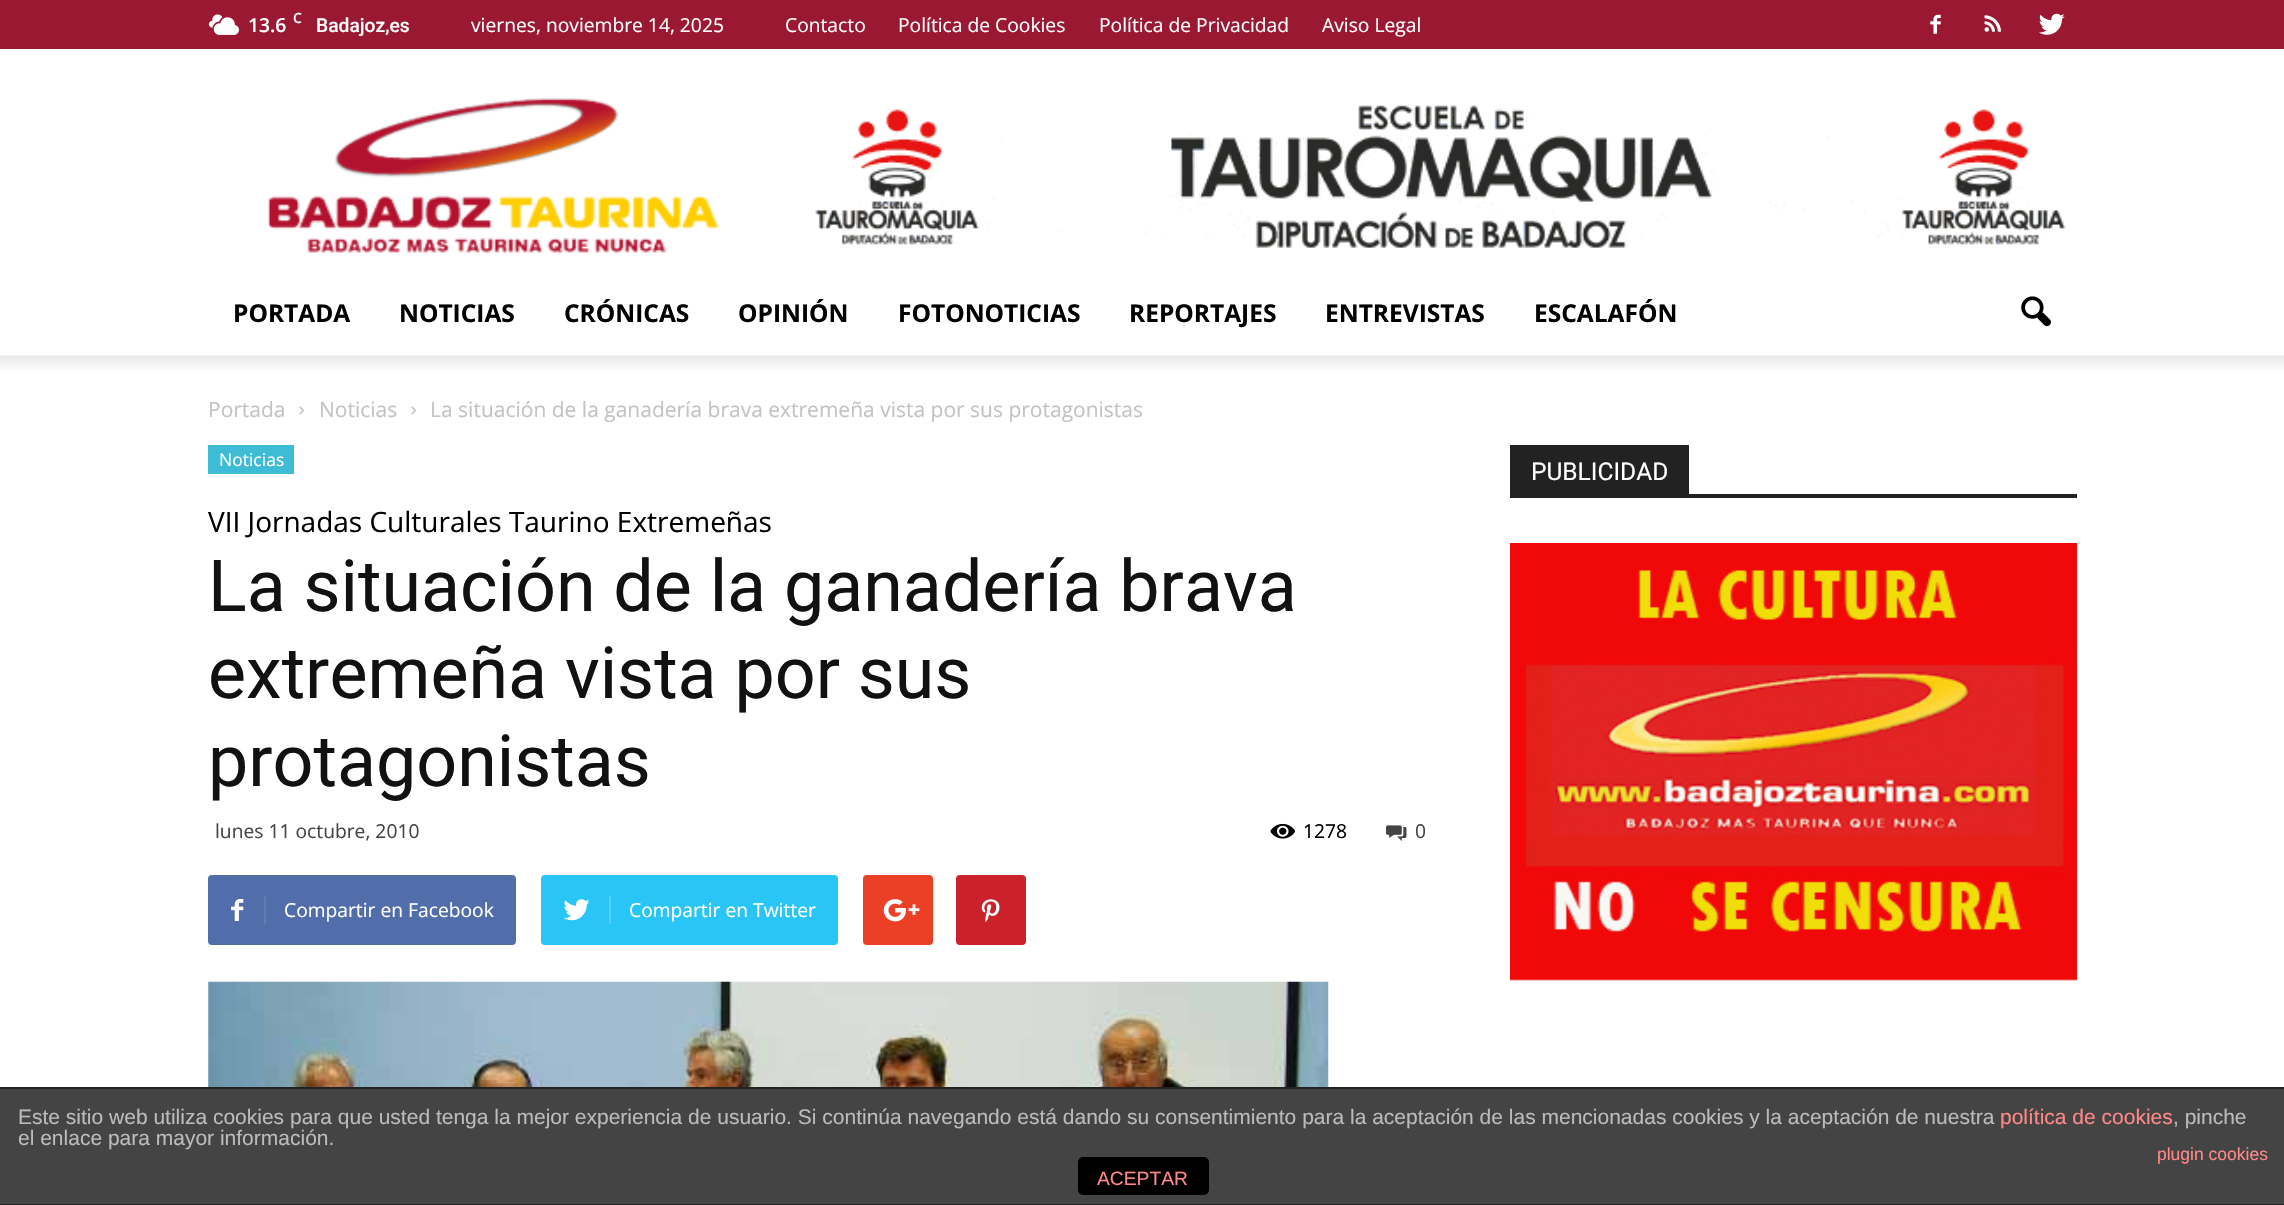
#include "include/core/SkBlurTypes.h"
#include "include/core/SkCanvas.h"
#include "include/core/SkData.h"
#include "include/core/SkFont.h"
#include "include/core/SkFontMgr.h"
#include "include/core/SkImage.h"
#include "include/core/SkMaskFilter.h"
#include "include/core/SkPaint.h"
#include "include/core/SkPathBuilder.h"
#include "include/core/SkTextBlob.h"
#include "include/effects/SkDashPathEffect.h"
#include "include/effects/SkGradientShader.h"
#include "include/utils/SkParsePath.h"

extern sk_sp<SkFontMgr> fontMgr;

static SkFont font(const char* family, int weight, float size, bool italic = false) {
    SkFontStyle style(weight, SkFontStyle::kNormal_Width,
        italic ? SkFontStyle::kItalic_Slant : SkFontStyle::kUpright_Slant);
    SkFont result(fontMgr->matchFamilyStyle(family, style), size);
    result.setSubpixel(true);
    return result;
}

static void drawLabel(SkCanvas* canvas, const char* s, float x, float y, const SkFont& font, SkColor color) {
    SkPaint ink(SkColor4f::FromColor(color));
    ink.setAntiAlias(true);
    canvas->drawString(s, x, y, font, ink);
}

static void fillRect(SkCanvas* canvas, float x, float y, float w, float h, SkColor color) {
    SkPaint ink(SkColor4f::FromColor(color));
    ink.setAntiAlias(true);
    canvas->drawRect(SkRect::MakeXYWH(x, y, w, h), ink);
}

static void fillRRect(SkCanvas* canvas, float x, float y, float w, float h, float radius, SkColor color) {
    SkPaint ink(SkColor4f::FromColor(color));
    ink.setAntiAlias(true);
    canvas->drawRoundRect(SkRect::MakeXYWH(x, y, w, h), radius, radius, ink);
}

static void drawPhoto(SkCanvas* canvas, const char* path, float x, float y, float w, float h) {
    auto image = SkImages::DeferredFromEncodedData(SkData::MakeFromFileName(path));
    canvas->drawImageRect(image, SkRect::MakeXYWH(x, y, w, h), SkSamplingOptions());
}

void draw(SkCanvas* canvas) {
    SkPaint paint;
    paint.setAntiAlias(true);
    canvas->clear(0xFFFFFFFF);
    fillRect(canvas, 0, 0, 2284, 49, 0xFF9A1832);
    drawPhoto(canvas, "assets/img1.png", 208, 14, 31, 21);
    SkFont font1 = font("Open Sans", 600, 19.25f);
    drawLabel(canvas, "13.6", 248, 32, font1, 0xFFFFFFFF);
    SkFont font2 = font("Open Sans", 600, 14);
    drawLabel(canvas, "C", 293, 23, font2, 0xFFFFFFFF);
    SkFont font3 = font("Roboto", 500, 19.25f);
    drawLabel(canvas, "Badajoz,es", 316, 32, font3, 0xFFFFFFFF);
    SkFont font4 = font("Open Sans", 400, 19.25f);
    drawLabel(canvas, "viernes, noviembre 14, 2025", 471, 32, font4, 0xFFFFFFFF);
    drawLabel(canvas, "Contacto", 785, 32, font4, 0xFFFFFFFF);
    drawLabel(canvas, "Política de Cookies", 898, 32, font4, 0xFFFFFFFF);
    drawLabel(canvas, "Política de Privacidad", 1099, 32, font4, 0xFFFFFFFF);
    drawLabel(canvas, "Aviso Legal", 1322, 32, font4, 0xFFFFFFFF);
    drawPhoto(canvas, "assets/img2.png", 1930, 14, 11, 20);
    drawPhoto(canvas, "assets/img3.png", 1984, 15, 17, 17);
    drawPhoto(canvas, "assets/img4.png", 2039, 13, 26, 22);
    drawPhoto(canvas, "assets/img5.png", 267, 98, 453, 156);
    drawPhoto(canvas, "assets/img6.png", 815, 105, 1251, 143);
    SkFont font5 = font("Open Sans", 700, 24.5f);
    drawLabel(canvas, "PORTADA", 233, 322, font5, 0xFF000000);
    drawLabel(canvas, "NOTICIAS", 399, 322, font5, 0xFF000000);
    drawLabel(canvas, "CRÓNICAS", 564, 322, font5, 0xFF000000);
    drawLabel(canvas, "OPINIÓN", 738, 322, font5, 0xFF000000);
    drawLabel(canvas, "FOTONOTICIAS", 898, 322, font5, 0xFF000000);
    drawLabel(canvas, "REPORTAJES", 1129, 322, font5, 0xFF000000);
    drawLabel(canvas, "ENTREVISTAS", 1325, 322, font5, 0xFF000000);
    drawLabel(canvas, "ESCALAFÓN", 1534, 322, font5, 0xFF000000);
    drawPhoto(canvas, "assets/img7.png", 2021, 296, 30, 31);
    drawPhoto(canvas, "assets/img8.png", 0, 355, 2284, 15);
    SkFont font6 = font("Open Sans", 400, 21);
    drawLabel(canvas, "Portada", 208, 417, font6, 0xFFC3C3C3);
    drawPhoto(canvas, "assets/img9.png", 299, 406, 5, 9);
    drawLabel(canvas, "Noticias", 319, 417, font6, 0xFFC3C3C3);
    drawPhoto(canvas, "assets/img9.png", 411, 406, 5, 9);
    drawLabel(canvas, "La situación de la ganadería brava extremeña vista por sus protagonistas", 430, 417, font6, 0xFFC3C3C3);
    fillRect(canvas, 208, 445, 86, 29, 0xFF3FBCD5);
    SkFont font7 = font("Open Sans", 400, 17.5f);
    drawLabel(canvas, "Noticias", 219, 466, font7, 0xFFFFFFFF);
    SkFont font8 = font("Open Sans", 400, 28);
    drawLabel(canvas, "VII Jornadas Culturales Taurino Extremeñas", 208, 532, font8, 0xFF000000);
    SkFont font9 = font("Roboto", 400, 71.75f);
    drawLabel(canvas, "La situación de la ganadería brava", 208, 611, font9, 0xFF111111);
    drawLabel(canvas, "extremeña vista por sus", 208, 698, font9, 0xFF111111);
    drawLabel(canvas, "protagonistas", 208, 786, font9, 0xFF111111);
    drawLabel(canvas, "lunes 11 octubre, 2010", 215, 838, font4, 0xFF444444);
    drawPhoto(canvas, "assets/img10.png", 1270, 823, 25, 16);
    drawLabel(canvas, "1278", 1303, 838, font4, 0xFF000000);
    drawPhoto(canvas, "assets/img11.png", 1386, 825, 21, 16);
    drawLabel(canvas, "0", 1415, 838, font4, 0xFF444444);
    fillRRect(canvas, 208, 875, 308, 70, 4, 0xFF516EAB);
    drawPhoto(canvas, "assets/img12.png", 231, 899, 13, 22);
    fillRect(canvas, 264, 896, 2, 28, 0xFF627DB3);
    drawLabel(canvas, "Compartir en Facebook", 284, 917, font4, 0xFFFFFFFF);
    fillRRect(canvas, 541, 875, 297, 70, 4, 0xFF29C5F6);
    drawPhoto(canvas, "assets/img13.png", 563, 899, 27, 22);
    fillRect(canvas, 609, 896, 2, 28, 0xFF54D1F8);
    drawLabel(canvas, "Compartir en Twitter", 629, 917, font4, 0xFFFFFFFF);
    fillRRect(canvas, 863, 875, 70, 70, 4, 0xFFEB4026);
    drawPhoto(canvas, "assets/img14.png", 883, 899, 37, 23);
    fillRRect(canvas, 956, 875, 70, 70, 4, 0xFFCA212A);
    drawPhoto(canvas, "assets/img15.png", 981, 899, 19, 23);
    drawPhoto(canvas, "assets/img16.png", 208, 981, 1121, 106);
    fillRect(canvas, 1510, 494, 567, 4, 0xFF222222);
    fillRect(canvas, 1510, 445, 179, 49, 0xFF222222);
    SkFont font10 = font("Roboto", 400, 24.5f);
    drawLabel(canvas, "PUBLICIDAD", 1531, 480, font10, 0xFFFFFFFF);
    drawPhoto(canvas, "assets/img17.png", 1510, 543, 567, 438);
    fillRect(canvas, 0, 1089, 2284, 115, 0xFF444444);
    fillRect(canvas, 0, 1087, 2284, 2, 0xFF222222);
    fillRect(canvas, 0, 1204, 2284, 1, 0xFF222222);
    SkFont font11 = font("Liberation Sans", 400, 21);
    drawLabel(canvas, "Este sitio web utiliza cookies para que usted tenga la mejor experiencia de usuario. Si continúa navegando está dando su consentimiento para la aceptación de las mencionadas cookies y la aceptación de nuestra", 18, 1124, font11, 0xFFBBBBBB);
    drawLabel(canvas, "política de cookies", 2000, 1124, font11, 0xFFFF8888);
    drawLabel(canvas, ", pinche", 2173, 1124, font11, 0xFFBBBBBB);
    drawLabel(canvas, "el enlace para mayor información.", 18, 1145, font11, 0xFFBBBBBB);
    SkFont font12 = font("Liberation Sans", 400, 17.5f);
    drawLabel(canvas, "plugin cookies", 2157, 1160, font12, 0xFFFF8888);
    fillRRect(canvas, 1078, 1157, 131, 38, 5, 0xFF000000);
    SkFont font13 = font("Liberation Sans", 400, 19.25f);
    drawLabel(canvas, "ACEPTAR", 1097, 1185, font13, 0xFFFF8888);
}
